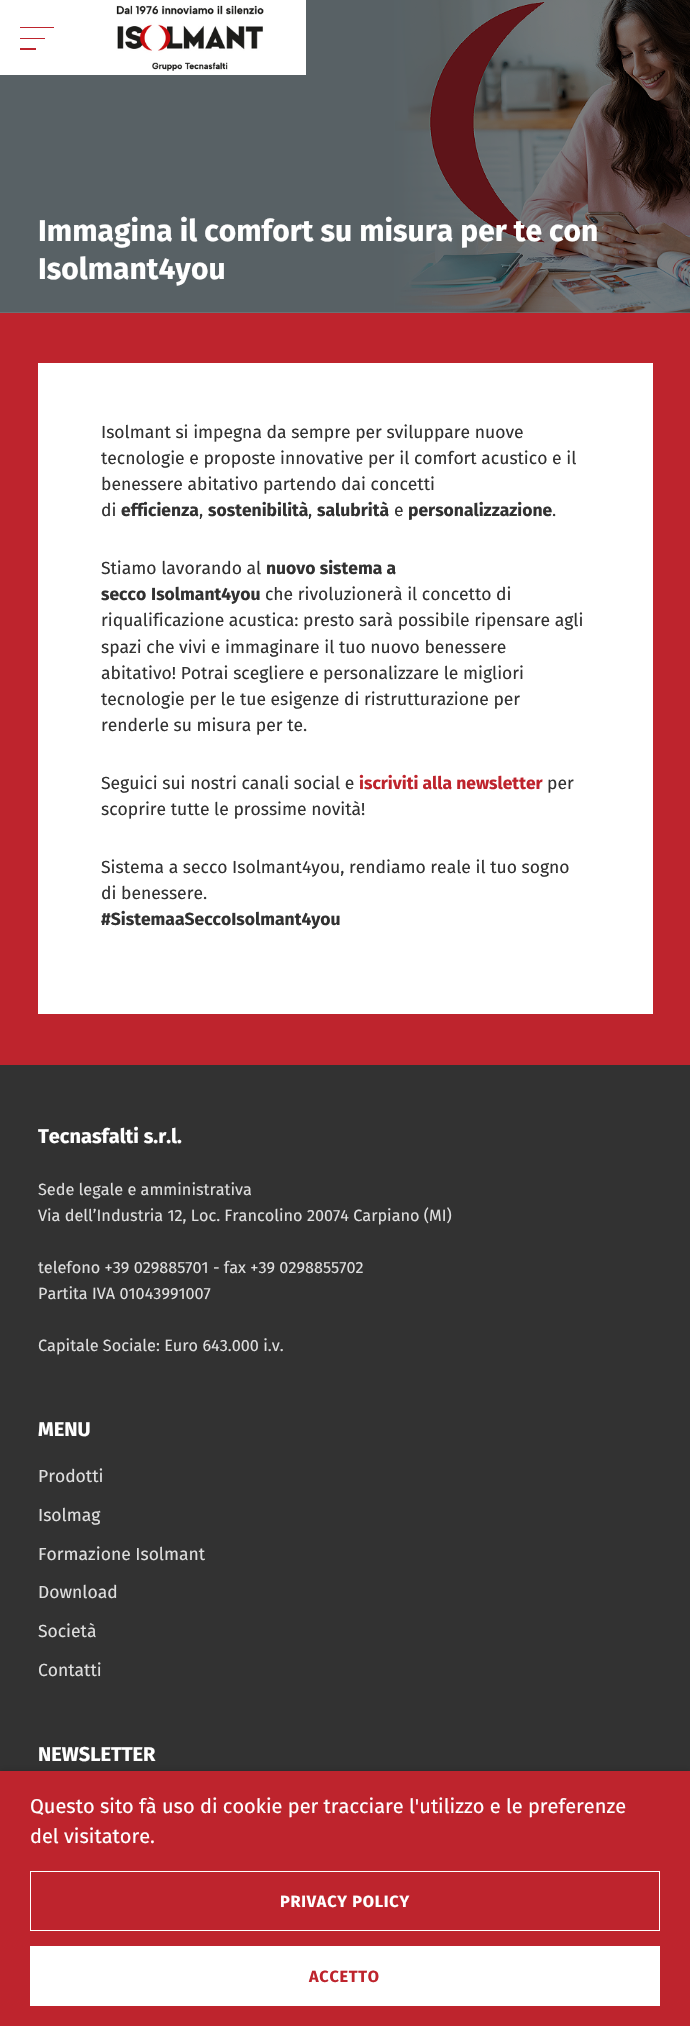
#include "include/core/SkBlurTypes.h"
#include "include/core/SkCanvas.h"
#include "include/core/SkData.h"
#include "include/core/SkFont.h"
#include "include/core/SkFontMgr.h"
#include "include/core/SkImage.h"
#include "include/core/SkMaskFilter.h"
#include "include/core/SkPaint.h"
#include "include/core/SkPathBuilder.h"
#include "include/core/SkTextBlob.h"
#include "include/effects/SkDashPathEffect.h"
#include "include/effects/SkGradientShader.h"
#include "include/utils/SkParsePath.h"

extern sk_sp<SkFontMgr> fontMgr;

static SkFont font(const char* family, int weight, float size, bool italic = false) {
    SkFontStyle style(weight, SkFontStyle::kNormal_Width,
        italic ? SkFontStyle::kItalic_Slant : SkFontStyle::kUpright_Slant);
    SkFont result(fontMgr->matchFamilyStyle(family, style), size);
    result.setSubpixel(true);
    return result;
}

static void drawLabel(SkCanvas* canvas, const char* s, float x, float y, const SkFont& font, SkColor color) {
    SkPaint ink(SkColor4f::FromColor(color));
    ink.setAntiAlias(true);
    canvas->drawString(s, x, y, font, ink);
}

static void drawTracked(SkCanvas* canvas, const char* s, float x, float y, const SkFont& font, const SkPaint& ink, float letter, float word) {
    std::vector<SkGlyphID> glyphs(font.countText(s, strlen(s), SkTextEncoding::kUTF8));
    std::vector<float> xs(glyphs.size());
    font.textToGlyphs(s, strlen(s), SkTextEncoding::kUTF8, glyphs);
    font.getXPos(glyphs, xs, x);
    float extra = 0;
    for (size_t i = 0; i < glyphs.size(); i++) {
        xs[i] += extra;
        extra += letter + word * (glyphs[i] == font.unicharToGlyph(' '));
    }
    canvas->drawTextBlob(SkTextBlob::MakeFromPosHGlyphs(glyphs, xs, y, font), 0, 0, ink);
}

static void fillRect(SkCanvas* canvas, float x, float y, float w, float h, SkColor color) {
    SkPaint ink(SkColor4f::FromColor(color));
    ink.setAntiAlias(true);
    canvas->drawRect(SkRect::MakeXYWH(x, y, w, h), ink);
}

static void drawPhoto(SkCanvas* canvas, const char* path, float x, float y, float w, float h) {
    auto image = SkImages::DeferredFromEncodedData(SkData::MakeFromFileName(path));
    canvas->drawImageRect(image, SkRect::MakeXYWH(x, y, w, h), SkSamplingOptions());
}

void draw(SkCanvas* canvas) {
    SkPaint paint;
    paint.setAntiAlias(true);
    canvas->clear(0xFF808080);
    drawPhoto(canvas, "assets/img2.png", 0, 0, 690, 313);
    fillRect(canvas, 0, 0, 306, 75, 0xFFFFFFFF);
    fillRect(canvas, 20, 48, 16, 2, 0xFFBE242D);
    fillRect(canvas, 20, 38, 25, 1, 0xFFBE242D);
    fillRect(canvas, 20, 27, 34, 1, 0xFFBE242D);
    drawPhoto(canvas, "assets/img1.png", 116, 5, 148, 66);
    SkFont font1 = font("Fira Sans", 700, 30);
    drawLabel(canvas, "Immagina il comfort su misura per te con", 38, 241, font1, 0xFFFFFFFF);
    drawLabel(canvas, "Isolmant4you", 38, 279, font1, 0xFFFFFFFF);
    fillRect(canvas, 0, 313, 690, 752, 0xFFBE242D);
    fillRect(canvas, 38, 363, 615, 651, 0xFFFFFFFF);
    SkFont font2 = font("Fira Sans", 400, 17.5f);
    drawLabel(canvas, "Isolmant si impegna da sempre per sviluppare nuove", 101, 438, font2, 0xFF323232);
    drawLabel(canvas, "tecnologie e proposte innovative per il comfort acustico e il", 101, 464, font2, 0xFF323232);
    drawLabel(canvas, "benessere abitativo partendo dai concetti", 101, 490, font2, 0xFF323232);
    drawLabel(canvas, "di", 101, 516, font2, 0xFF323232);
    SkFont font3 = font("Fira Sans", 700, 17.5f);
    drawLabel(canvas, "efficienza", 121, 516, font3, 0xFF323232);
    drawLabel(canvas, ",", 199, 516, font2, 0xFF323232);
    drawLabel(canvas, "sostenibilità", 208, 516, font3, 0xFF323232);
    drawLabel(canvas, ",", 308, 516, font2, 0xFF323232);
    drawLabel(canvas, "salubrità", 317, 516, font3, 0xFF323232);
    drawLabel(canvas, "e", 394, 516, font2, 0xFF323232);
    drawLabel(canvas, "personalizzazione", 408, 516, font3, 0xFF323232);
    drawLabel(canvas, ".", 552, 516, font2, 0xFF323232);
    drawLabel(canvas, "Stiamo lavorando al", 101, 574, font2, 0xFF323232);
    drawLabel(canvas, "nuovo sistema a", 266, 574, font3, 0xFF323232);
    drawLabel(canvas, "secco", 101, 600, font3, 0xFF323232);
    drawLabel(canvas, "Isolmant4you", 151, 600, font3, 0xFF323232);
    drawLabel(canvas, "che rivoluzionerà il concetto di", 265, 600, font2, 0xFF323232);
    drawLabel(canvas, "riqualificazione acustica: presto sarà possibile ripensare agli", 101, 626, font2, 0xFF323232);
    drawLabel(canvas, "spazi che vivi e immaginare il tuo nuovo benessere", 101, 653, font2, 0xFF323232);
    drawLabel(canvas, "abitativo! Potrai scegliere e personalizzare le migliori", 101, 679, font2, 0xFF323232);
    drawLabel(canvas, "tecnologie per le tue esigenze di ristrutturazione per", 101, 705, font2, 0xFF323232);
    drawLabel(canvas, "renderle su misura per te.", 101, 731, font2, 0xFF323232);
    drawLabel(canvas, "Seguici sui nostri canali social e", 101, 789, font2, 0xFF323232);
    drawLabel(canvas, "iscriviti alla newsletter", 359, 789, font3, 0xFFBE242D);
    drawLabel(canvas, "per", 547, 789, font2, 0xFF323232);
    drawLabel(canvas, "scoprire tutte le prossime novità!", 101, 815, font2, 0xFF323232);
    drawLabel(canvas, "Sistema a secco Isolmant4you, rendiamo reale il tuo sogno", 101, 873, font2, 0xFF323232);
    drawLabel(canvas, "di benessere.", 101, 899, font2, 0xFF323232);
    drawLabel(canvas, "#SistemaaSeccoIsolmant4you", 101, 925, font3, 0xFF323232);
    fillRect(canvas, 0, 1065, 690, 706, 0xFF323232);
    SkFont font4 = font("Fira Sans", 700, 20);
    drawLabel(canvas, "Tecnasfalti s.r.l.", 38, 1143, font4, 0xFFFFFFFF);
    SkFont font5 = font("Fira Sans", 400, 16.25f);
    drawLabel(canvas, "Sede legale e amministrativa", 38, 1195, font5, 0xFFDEDEDE);
    drawLabel(canvas, "Via dell’Industria 12, Loc. Francolino 20074 Carpiano (MI)", 38, 1221, font5, 0xFFDEDEDE);
    drawLabel(canvas, "telefono +39 029885701 - fax +39 0298855702", 38, 1273, font5, 0xFFDEDEDE);
    drawLabel(canvas, "Partita IVA 01043991007", 38, 1299, font5, 0xFFDEDEDE);
    drawLabel(canvas, "Capitale Sociale: Euro 643.000 i.v.", 38, 1351, font5, 0xFFDEDEDE);
    drawLabel(canvas, "MENU", 38, 1436, font4, 0xFFFFFFFF);
    drawLabel(canvas, "Prodotti", 38, 1482, font2, 0xFFDEDEDE);
    drawLabel(canvas, "Isolmag", 38, 1521, font2, 0xFFDEDEDE);
    drawLabel(canvas, "Formazione Isolmant", 38, 1560, font2, 0xFFDEDEDE);
    drawLabel(canvas, "Download", 38, 1598, font2, 0xFFDEDEDE);
    drawLabel(canvas, "Società", 38, 1637, font2, 0xFFDEDEDE);
    drawLabel(canvas, "Contatti", 38, 1676, font2, 0xFFDEDEDE);
    drawLabel(canvas, "NEWSLETTER", 38, 1761, font4, 0xFFFFFFFF);
    paint.setColor(0x1A000000);
    paint.setMaskFilter(SkMaskFilter::MakeBlur(kNormal_SkBlurStyle, 2.5f));
    canvas->drawRect(SkRect::MakeXYWH(0, 1769, 690, 255), paint);
    paint.setMaskFilter(nullptr);
    fillRect(canvas, 0, 1771, 690, 255, 0xFFBE242D);
    SkFont font6 = font("Fira Sans", 400, 20);
    drawLabel(canvas, "Questo sito fà uso di cookie per tracciare l'utilizzo e le preferenze", 30, 1813, font6, 0xFFFFFFFF);
    drawLabel(canvas, "del visitatore.", 30, 1843, font6, 0xFFFFFFFF);
    paint.setStroke(true);
    paint.setStrokeWidth(1);
    paint.setColor(0xFFFFFFFF);
    canvas->drawRect(SkRect::MakeXYWH(30.5f, 1871.5f, 629, 59), paint);
    SkFont font7 = font("Fira Sans", 700, 16.25f);
    paint.setStroke(false);
    drawTracked(canvas, "PRIVACY POLICY", 280, 1907, font7, paint, 0.75f, 0);
    fillRect(canvas, 30, 1946, 630, 60, 0xFFFFFFFF);
    paint.setColor(0xFFBE242D);
    drawTracked(canvas, "ACCETTO", 309, 1982, font7, paint, 0.75f, 0);
}
